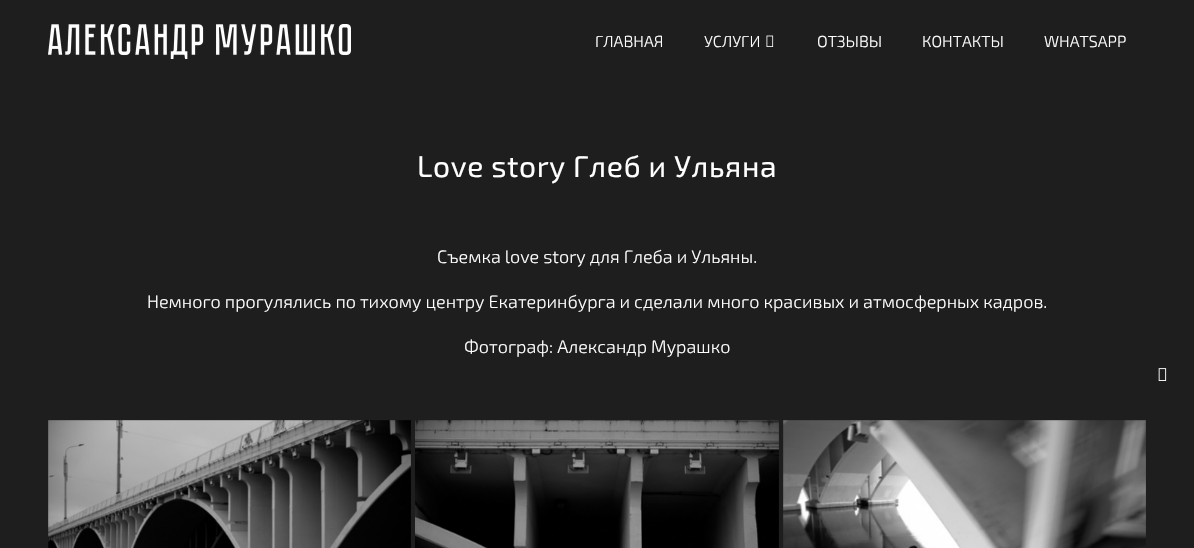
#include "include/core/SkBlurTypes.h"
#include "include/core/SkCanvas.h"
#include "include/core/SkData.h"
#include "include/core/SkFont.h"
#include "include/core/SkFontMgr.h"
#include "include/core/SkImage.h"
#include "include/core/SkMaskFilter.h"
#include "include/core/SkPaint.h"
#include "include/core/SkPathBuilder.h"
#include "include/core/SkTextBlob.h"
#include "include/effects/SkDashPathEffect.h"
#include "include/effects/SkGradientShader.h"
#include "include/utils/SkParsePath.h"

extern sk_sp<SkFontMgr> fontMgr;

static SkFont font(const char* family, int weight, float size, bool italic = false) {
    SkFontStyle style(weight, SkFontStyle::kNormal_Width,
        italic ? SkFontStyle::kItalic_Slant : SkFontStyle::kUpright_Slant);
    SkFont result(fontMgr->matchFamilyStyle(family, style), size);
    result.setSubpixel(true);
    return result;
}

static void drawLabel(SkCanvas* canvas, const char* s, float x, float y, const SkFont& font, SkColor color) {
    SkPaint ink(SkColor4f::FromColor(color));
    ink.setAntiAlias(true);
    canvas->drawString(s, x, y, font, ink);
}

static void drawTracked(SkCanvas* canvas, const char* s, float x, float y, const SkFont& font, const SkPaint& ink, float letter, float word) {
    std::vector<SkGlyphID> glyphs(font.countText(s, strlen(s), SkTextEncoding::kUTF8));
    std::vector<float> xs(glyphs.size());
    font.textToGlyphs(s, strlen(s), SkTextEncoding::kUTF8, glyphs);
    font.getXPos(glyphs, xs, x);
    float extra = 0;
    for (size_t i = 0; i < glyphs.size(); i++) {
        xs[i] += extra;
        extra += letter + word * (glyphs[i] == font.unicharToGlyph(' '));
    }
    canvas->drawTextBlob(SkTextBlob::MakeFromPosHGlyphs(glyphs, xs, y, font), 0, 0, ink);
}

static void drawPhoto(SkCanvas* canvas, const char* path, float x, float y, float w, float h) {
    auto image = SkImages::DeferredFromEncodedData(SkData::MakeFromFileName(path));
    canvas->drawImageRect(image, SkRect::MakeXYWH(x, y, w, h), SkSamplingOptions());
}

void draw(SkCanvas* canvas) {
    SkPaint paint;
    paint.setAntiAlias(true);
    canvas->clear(0xFF1E1E1E);
    drawPhoto(canvas, "assets/img1.png", 48, 24, 303, 35);
    SkFont font1 = font("Exo 2", 300, 16);
    drawLabel(canvas, "ГЛАВНАЯ", 595, 47, font1, 0xFFFFFFFF);
    drawLabel(canvas, "УСЛУГИ", 704, 47, font1, 0xFFFFFFFF);
    drawPhoto(canvas, "assets/img2.png", 766, 35, 8, 12);
    drawLabel(canvas, "ОТЗЫВЫ", 817, 47, font1, 0xFFFFFFFF);
    drawLabel(canvas, "КОНТАКТЫ", 922, 47, font1, 0xFFFFFFFF);
    drawLabel(canvas, "WHATSAPP", 1044, 47, font1, 0xFFFFFFFF);
    SkFont font2 = font("Exo 2", 400, 30);
    paint.setColor(0xFFFFFFFF);
    drawTracked(canvas, "Love story Глеб и Ульяна", 417, 177, font2, paint, 0.6f, 0);
    SkFont font3 = font("Exo 2", 300, 18);
    drawLabel(canvas, "Съемка love story для Глеба и Ульяны.", 437, 263, font3, 0xFFFFFFFF);
    drawLabel(canvas, "Немного прогулялись по тихому центру Екатеринбурга и сделали много красивых и атмосферных кадров.", 147, 308, font3, 0xFFFFFFFF);
    drawLabel(canvas, "Фотограф: Александр Мурашко", 464, 353, font3, 0xFFFFFFFF);
    drawPhoto(canvas, "assets/img3.png", 48, 420, 363, 128);
    drawPhoto(canvas, "assets/img4.png", 415, 420, 364, 128);
    drawPhoto(canvas, "assets/img5.png", 783, 420, 363, 128);
    drawPhoto(canvas, "assets/img6.png", 1158, 368, 9, 13);
}
